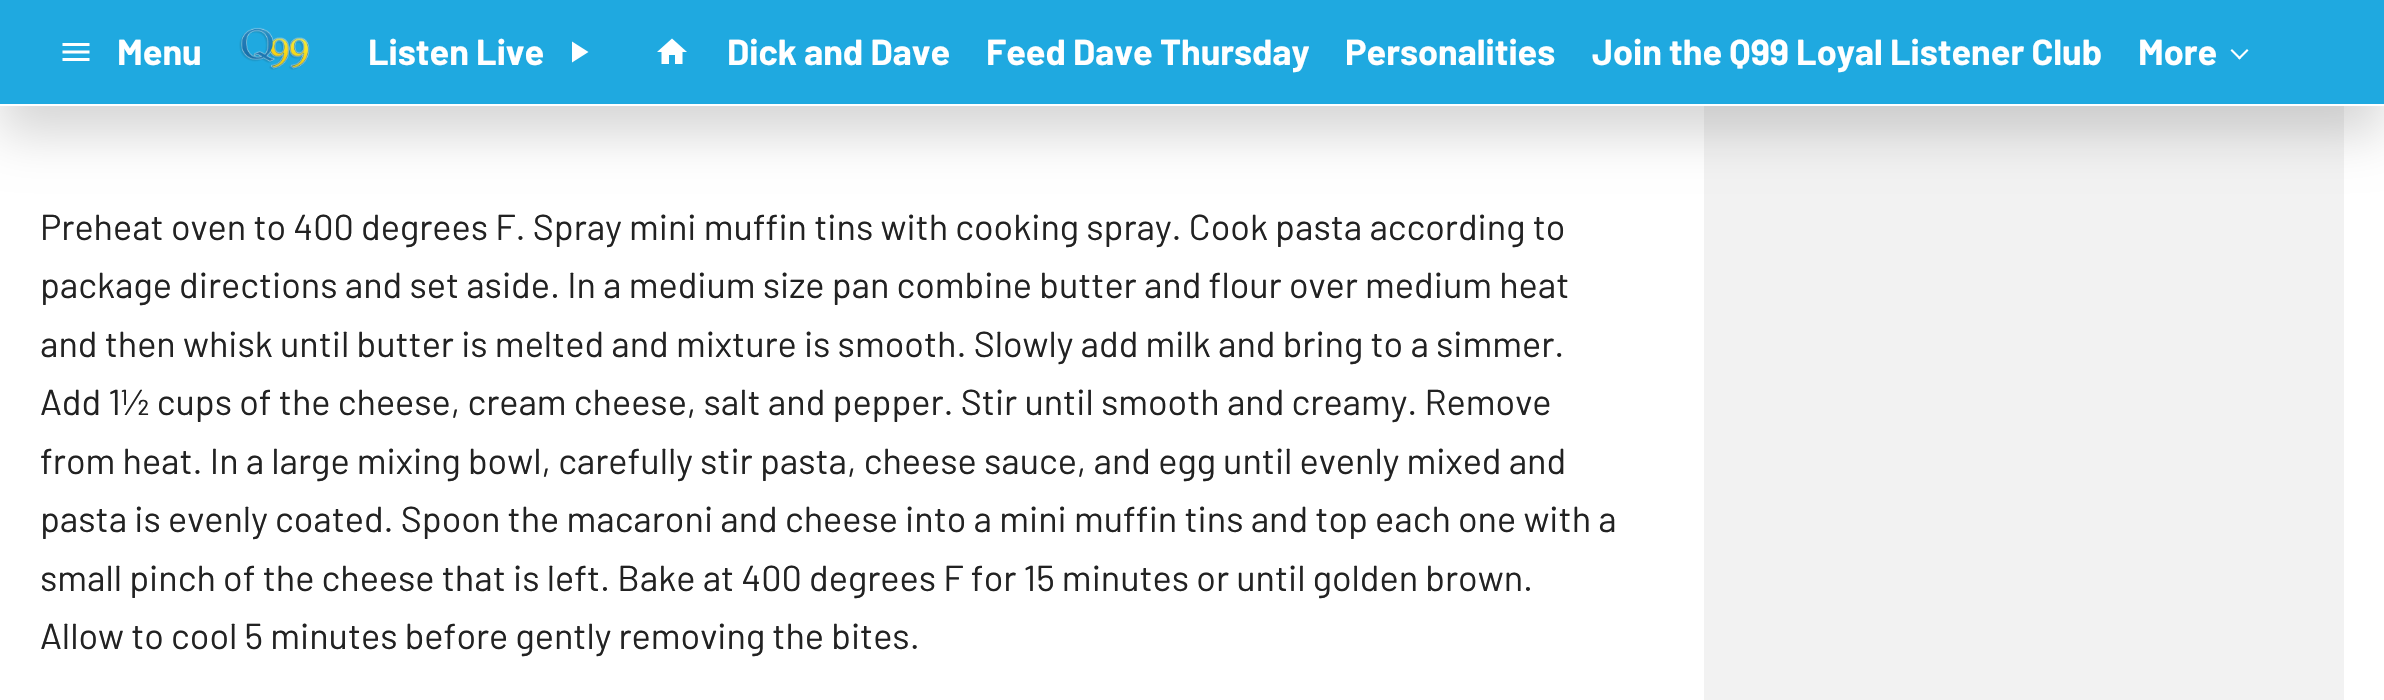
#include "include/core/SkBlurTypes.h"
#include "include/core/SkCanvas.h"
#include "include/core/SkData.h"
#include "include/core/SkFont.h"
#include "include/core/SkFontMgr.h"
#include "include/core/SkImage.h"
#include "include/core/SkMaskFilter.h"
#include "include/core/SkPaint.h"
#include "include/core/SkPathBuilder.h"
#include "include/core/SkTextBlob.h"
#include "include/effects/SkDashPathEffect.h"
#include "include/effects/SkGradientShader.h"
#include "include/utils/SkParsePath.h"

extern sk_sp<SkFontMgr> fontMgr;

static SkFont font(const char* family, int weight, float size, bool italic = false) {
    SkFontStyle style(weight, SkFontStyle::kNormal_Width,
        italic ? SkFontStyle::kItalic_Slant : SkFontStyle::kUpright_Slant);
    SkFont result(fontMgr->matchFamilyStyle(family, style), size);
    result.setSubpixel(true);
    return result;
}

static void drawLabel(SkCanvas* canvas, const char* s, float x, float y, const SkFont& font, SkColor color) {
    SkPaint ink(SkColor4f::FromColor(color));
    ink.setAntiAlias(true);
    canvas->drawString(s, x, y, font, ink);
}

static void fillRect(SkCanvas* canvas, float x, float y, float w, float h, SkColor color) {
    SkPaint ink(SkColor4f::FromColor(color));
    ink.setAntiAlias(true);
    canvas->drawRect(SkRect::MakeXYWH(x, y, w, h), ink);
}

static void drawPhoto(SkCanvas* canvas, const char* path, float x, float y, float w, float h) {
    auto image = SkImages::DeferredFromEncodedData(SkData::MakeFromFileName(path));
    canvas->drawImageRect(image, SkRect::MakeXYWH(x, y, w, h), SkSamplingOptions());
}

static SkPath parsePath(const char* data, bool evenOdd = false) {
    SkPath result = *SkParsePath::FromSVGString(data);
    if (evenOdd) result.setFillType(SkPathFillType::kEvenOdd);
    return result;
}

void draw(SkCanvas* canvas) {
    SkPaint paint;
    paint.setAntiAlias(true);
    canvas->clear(0xFFFFFFFF);
    fillRect(canvas, 1704, 106, 640, 594, 0xFFF2F2F2);
    paint.setColor(0x29000000);
    paint.setMaskFilter(SkMaskFilter::MakeBlur(kNormal_SkBlurStyle, 25));
    canvas->drawRect(SkRect::MakeXYWH(0, 26, 2384, 108), paint);
    paint.setMaskFilter(nullptr);
    fillRect(canvas, 0, 0, 2384, 104, 0xFF1FA9E0);
    fillRect(canvas, 0, 104, 2384, 2, 0xFFFFFFFF);
    drawPhoto(canvas, "assets/img1.png", 62, 43, 28, 18);
    SkFont font1 = font("Barlow", 700, 36);
    drawLabel(canvas, "Menu", 117, 65, font1, 0xFFFFFFFF);
    drawPhoto(canvas, "assets/img2.png", 239, 27, 71, 43);
    drawLabel(canvas, "Listen Live", 368, 65, font1, 0xFFFFFFFF);
    paint.setColor(0xFFFFFFFF);
    canvas->drawPath(parsePath("M572 41.5V62.5L588.5 52Z"), paint);
    drawPhoto(canvas, "assets/img3.png", 657, 38, 30, 26);
    drawLabel(canvas, "Dick and Dave", 727, 65, font1, 0xFFFFFFFF);
    drawLabel(canvas, "Feed Dave Thursday", 986, 65, font1, 0xFFFFFFFF);
    drawLabel(canvas, "Personalities", 1345, 65, font1, 0xFFFFFFFF);
    drawLabel(canvas, "Join the Q99 Loyal Listener Club", 1592, 65, font1, 0xFFFFFFFF);
    drawLabel(canvas, "More", 2138, 65, font1, 0xFFFFFFFF);
    canvas->drawPath(parsePath("M2248.5 50.5L2239.5 59.5L2238 58L2247 49Z"), paint);
    canvas->drawPath(parsePath("M2241 58L2239.5 59.5L2230.5 50.5L2232 49Z"), paint);
    SkFont font2 = font("Barlow", 400, 36);
    drawLabel(canvas, "Preheat oven to 400 degrees F. Spray mini muffin tins with cooking spray. Cook pasta according to", 40, 240, font2, 0xFF222222);
    drawLabel(canvas, "package directions and set aside. In a medium size pan combine butter and flour over medium heat", 40, 298, font2, 0xFF222222);
    drawLabel(canvas, "and then whisk until butter is melted and mixture is smooth. Slowly add milk and bring to a simmer.", 40, 357, font2, 0xFF222222);
    drawLabel(canvas, "Add 1½ cups of the cheese, cream cheese, salt and pepper. Stir until smooth and creamy. Remove", 40, 415, font2, 0xFF222222);
    drawLabel(canvas, "from heat. In a large mixing bowl, carefully stir pasta, cheese sauce, and egg until evenly mixed and", 40, 474, font2, 0xFF222222);
    drawLabel(canvas, "pasta is evenly coated. Spoon the macaroni and cheese into a mini muffin tins and top each one with a", 40, 532, font2, 0xFF222222);
    drawLabel(canvas, "small pinch of the cheese that is left. Bake at 400 degrees F for 15 minutes or until golden brown.", 40, 591, font2, 0xFF222222);
    drawLabel(canvas, "Allow to cool 5 minutes before gently removing the bites.", 40, 649, font2, 0xFF222222);
}
